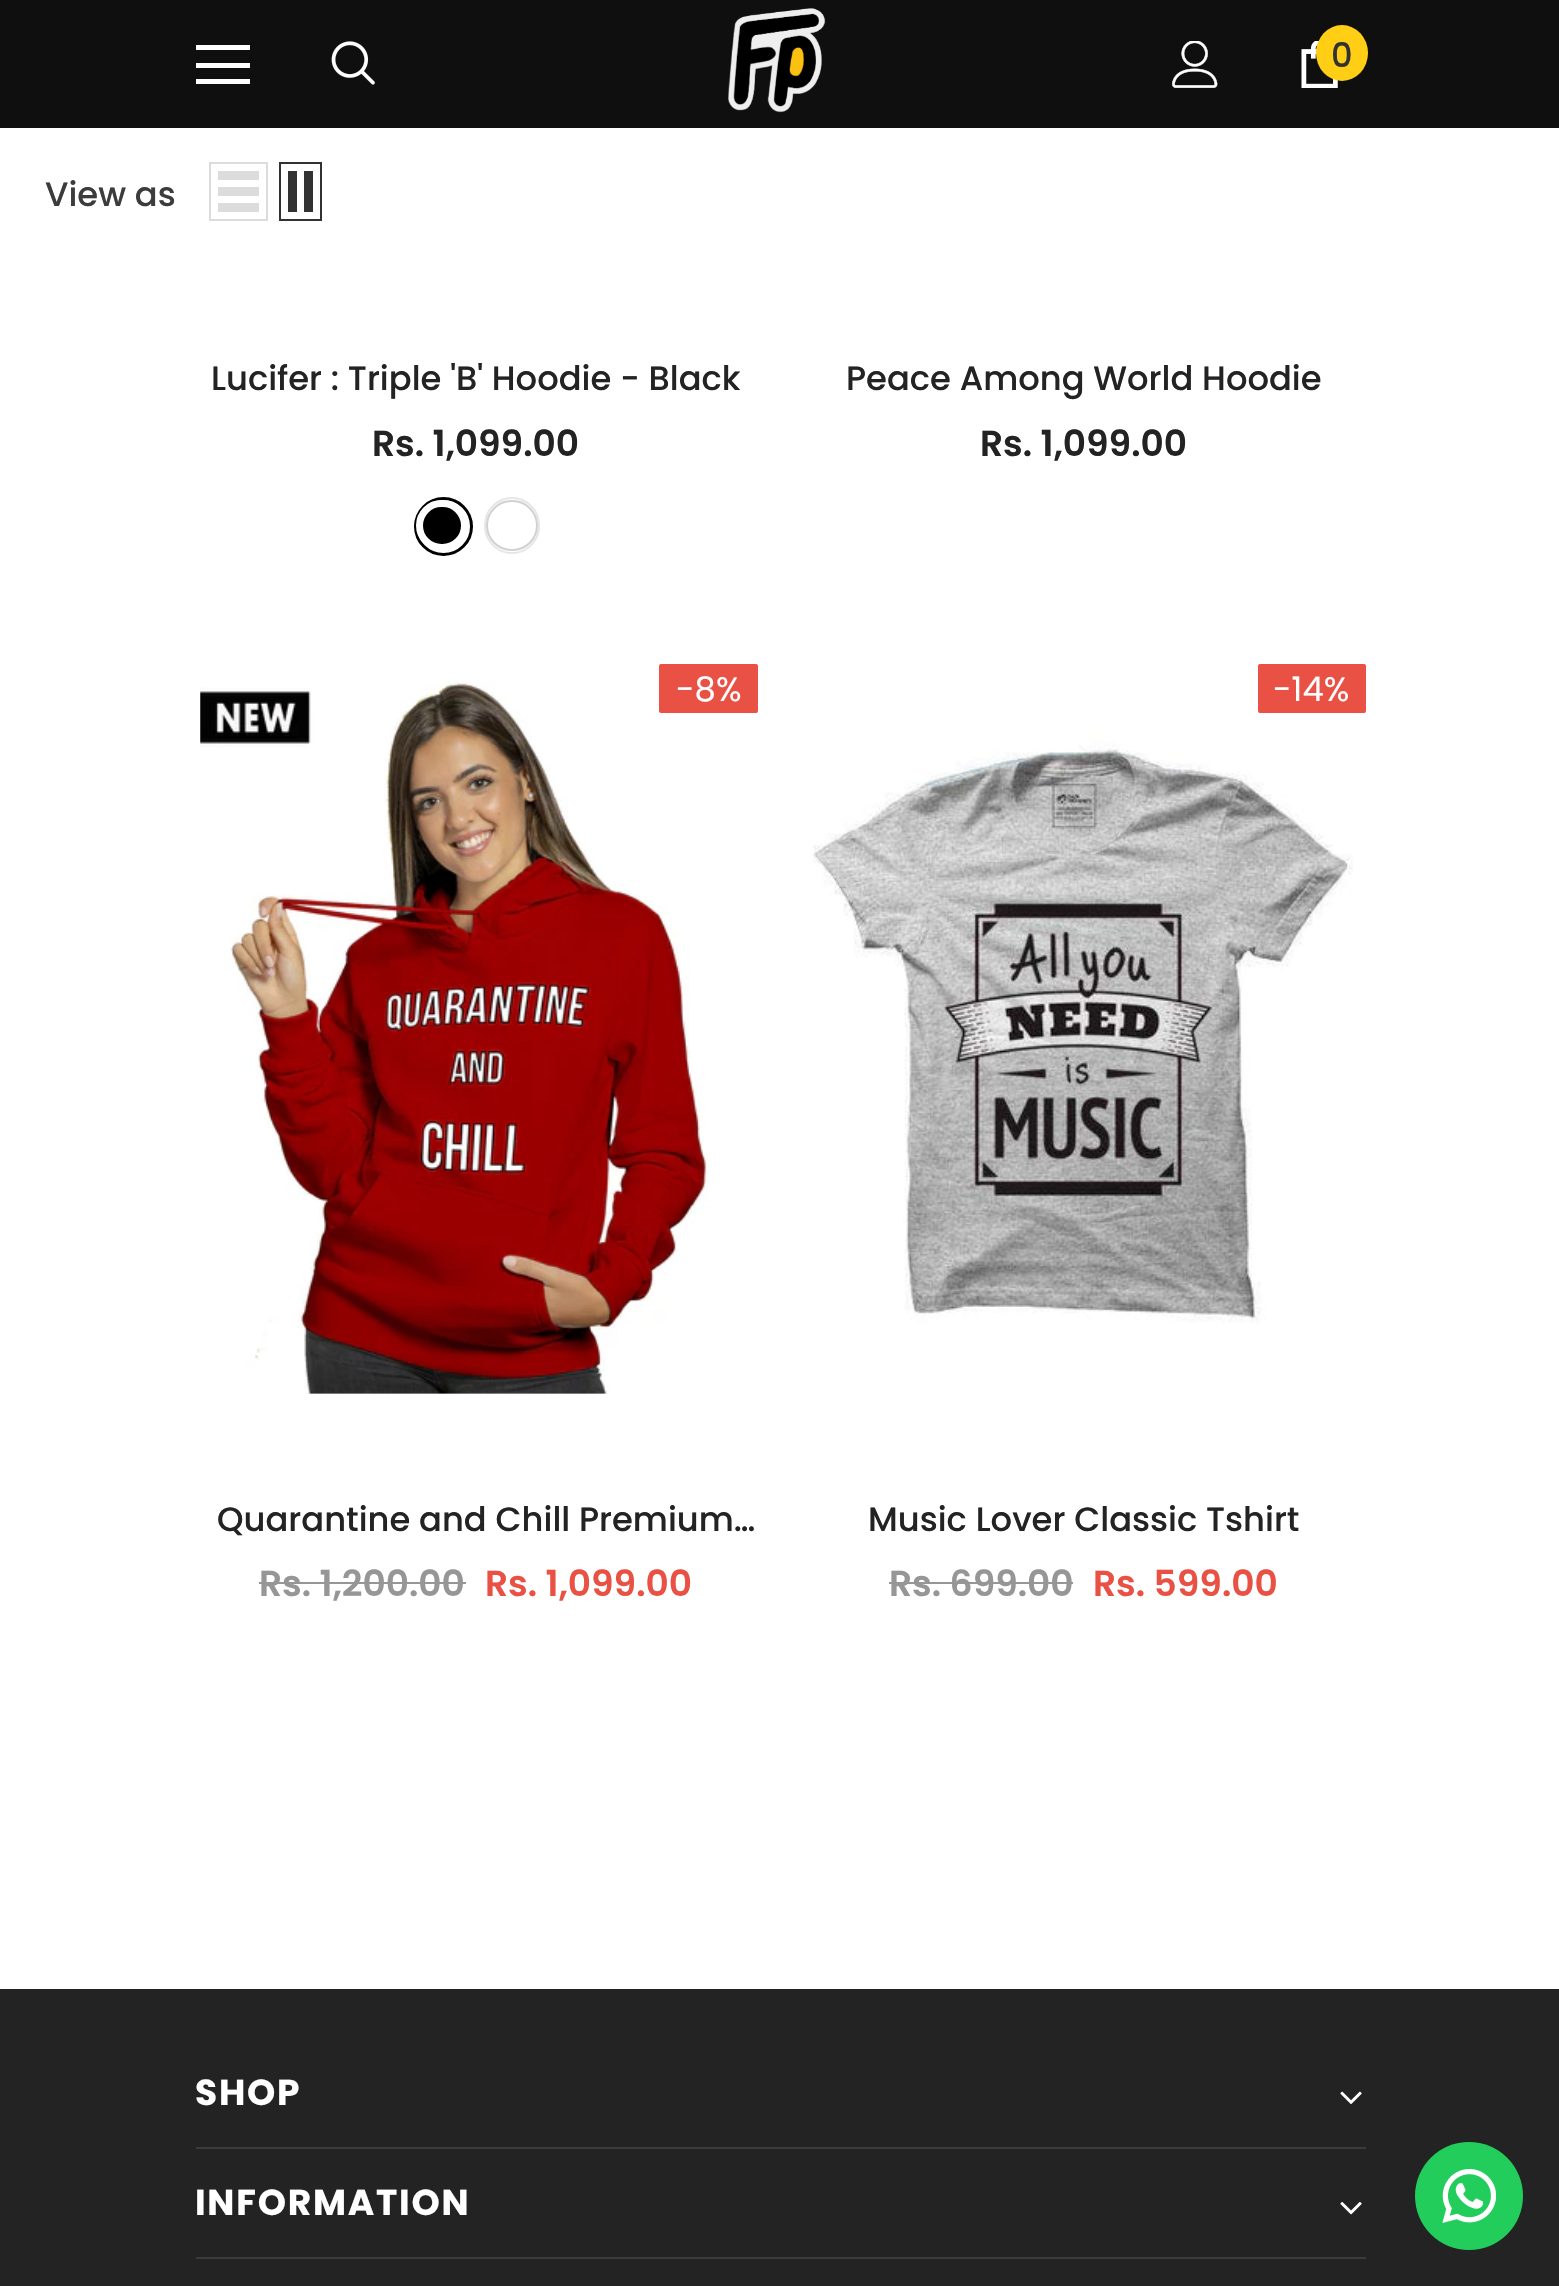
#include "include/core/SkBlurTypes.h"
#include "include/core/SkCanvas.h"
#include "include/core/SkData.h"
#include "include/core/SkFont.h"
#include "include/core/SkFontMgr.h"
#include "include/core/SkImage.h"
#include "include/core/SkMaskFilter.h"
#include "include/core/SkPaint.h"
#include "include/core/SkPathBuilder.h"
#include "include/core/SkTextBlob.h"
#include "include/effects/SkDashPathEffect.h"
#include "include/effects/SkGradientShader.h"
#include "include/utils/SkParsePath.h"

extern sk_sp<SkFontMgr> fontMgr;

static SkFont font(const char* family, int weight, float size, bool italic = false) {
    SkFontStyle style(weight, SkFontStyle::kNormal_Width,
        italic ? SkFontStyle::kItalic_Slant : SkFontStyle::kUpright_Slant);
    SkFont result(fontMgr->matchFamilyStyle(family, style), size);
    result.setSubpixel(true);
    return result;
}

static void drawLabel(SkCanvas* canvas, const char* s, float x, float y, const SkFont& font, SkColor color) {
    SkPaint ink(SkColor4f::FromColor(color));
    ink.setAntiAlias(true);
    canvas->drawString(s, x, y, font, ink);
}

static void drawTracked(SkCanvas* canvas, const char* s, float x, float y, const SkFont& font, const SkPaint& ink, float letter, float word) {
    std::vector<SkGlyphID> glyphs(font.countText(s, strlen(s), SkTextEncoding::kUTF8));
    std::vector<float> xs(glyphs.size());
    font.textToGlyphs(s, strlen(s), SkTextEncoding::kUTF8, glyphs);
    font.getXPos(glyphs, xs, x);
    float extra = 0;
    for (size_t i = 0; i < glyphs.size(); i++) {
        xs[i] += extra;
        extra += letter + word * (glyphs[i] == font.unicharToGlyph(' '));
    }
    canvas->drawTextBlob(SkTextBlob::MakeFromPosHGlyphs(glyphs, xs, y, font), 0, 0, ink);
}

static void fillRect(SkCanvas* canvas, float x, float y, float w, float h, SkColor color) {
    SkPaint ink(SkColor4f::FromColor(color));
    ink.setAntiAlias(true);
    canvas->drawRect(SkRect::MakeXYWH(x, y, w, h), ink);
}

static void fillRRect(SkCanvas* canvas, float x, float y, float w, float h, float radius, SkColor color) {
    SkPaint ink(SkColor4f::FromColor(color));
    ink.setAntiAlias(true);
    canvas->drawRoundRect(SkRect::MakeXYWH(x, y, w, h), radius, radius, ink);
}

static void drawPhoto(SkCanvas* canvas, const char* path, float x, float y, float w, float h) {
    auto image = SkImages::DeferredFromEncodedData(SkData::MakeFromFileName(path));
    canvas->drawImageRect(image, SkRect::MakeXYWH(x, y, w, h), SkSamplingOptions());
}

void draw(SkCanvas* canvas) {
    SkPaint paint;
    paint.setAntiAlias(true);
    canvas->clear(0xFFFFFFFF);
    fillRect(canvas, 0, 0, 1559, 128, 0xFF0F0F0F);
    fillRect(canvas, 196, 45, 54, 5, 0xFFFFFFFF);
    fillRect(canvas, 196, 63, 54, 5, 0xFFFFFFFF);
    fillRect(canvas, 196, 79, 54, 5, 0xFFFFFFFF);
    drawPhoto(canvas, "assets/img1.png", 331, 41, 44, 44);
    drawPhoto(canvas, "assets/img2.png", 728, 8, 98, 105);
    drawPhoto(canvas, "assets/img3.png", 1172, 41, 46, 47);
    drawPhoto(canvas, "assets/img4.png", 1301, 41, 37, 47);
    paint.setColor(0xFFFFCE15);
    canvas->drawOval(SkRect::MakeXYWH(1316, 25, 52, 56), paint);
    SkFont font1 = font("Poppins", 500, 33.75f);
    drawLabel(canvas, "0", 1331, 67, font1, 0xFF323232);
    drawLabel(canvas, "View as", 45, 206, font1, 0xFF3C3C3C);
    paint.setStroke(true);
    paint.setStrokeWidth(2);
    paint.setColor(0xFFDCDCDC);
    canvas->drawRect(SkRect::MakeXYWH(210, 163, 57, 57), paint);
    fillRect(canvas, 218, 203, 41, 9, 0xFFDCDCDC);
    fillRect(canvas, 218, 187, 41, 9, 0xFFDCDCDC);
    fillRect(canvas, 218, 171, 41, 9, 0xFFDCDCDC);
    paint.setColor(0xFF323232);
    canvas->drawRect(SkRect::MakeXYWH(280, 163, 41, 57), paint);
    fillRect(canvas, 304, 171, 9, 41, 0xFF323232);
    fillRect(canvas, 288, 171, 9, 41, 0xFF323232);
    drawLabel(canvas, "Lucifer : Triple 'B' Hoodie - Black", 211, 390, font1, 0xFF232323);
    SkFont font2 = font("Poppins", 600, 36);
    drawLabel(canvas, "Rs. 1,099.00", 372, 456, font2, 0xFF232323);
    paint.setStrokeWidth(3);
    paint.setColor(0xFF000000);
    canvas->drawCircle(443.5f, 526.5f, 28, paint);
    paint.setStroke(false);
    canvas->drawRoundRect(SkRect::MakeXYWH(419.5f, 503.5f, 45, 44), 22, 22, paint);
    paint.setStroke(true);
    paint.setStrokeWidth(7);
    paint.setColor(0xFFFFFFFF);
    canvas->drawRoundRect(SkRect::MakeXYWH(419.5f, 503.5f, 45, 44), 22, 22, paint);
    paint.setStrokeWidth(2);
    paint.setColor(0xFFE6E6E6);
    canvas->drawRoundRect(SkRect::MakeXYWH(485, 498, 54, 55), 27, 27, paint);
    paint.setStroke(false);
    paint.setColor(0xFFFFFFFF);
    canvas->drawRoundRect(SkRect::MakeXYWH(487, 501, 50, 49), 24.5f, 24.5f, paint);
    paint.setStroke(true);
    paint.setColor(0xFFD1D1D1);
    canvas->drawRoundRect(SkRect::MakeXYWH(487, 501, 50, 49), 24.5f, 24.5f, paint);
    drawLabel(canvas, "Peace Among World Hoodie", 846, 390, font1, 0xFF232323);
    drawLabel(canvas, "Rs. 1,099.00", 980, 456, font2, 0xFF232323);
    drawPhoto(canvas, "assets/img5.png", 200, 681, 510, 713);
    fillRRect(canvas, 659, 664, 99, 49, 2, 0xFFE95144);
    SkFont font3 = font("Poppins", 400, 33.75f);
    drawLabel(canvas, "-8%", 676, 701, font3, 0xFFFFFFFF);
    drawLabel(canvas, "Quarantine and Chill Premium…", 217, 1531, font1, 0xFF232323);
    drawLabel(canvas, "Rs. 1,200.00", 259, 1596, font2, 0xFF969696);
    fillRect(canvas, 259, 1582, 207, 2, 0xFF969696);
    drawLabel(canvas, "Rs. 1,099.00", 485, 1596, font2, 0xFFE95144);
    fillRRect(canvas, 1258, 664, 108, 49, 2, 0xFFE95144);
    drawLabel(canvas, "-14%", 1273, 701, font3, 0xFFFFFFFF);
    drawPhoto(canvas, "assets/img6.png", 812, 732, 541, 592);
    drawLabel(canvas, "Music Lover Classic Tshirt", 868, 1531, font1, 0xFF232323);
    drawLabel(canvas, "Rs. 699.00", 889, 1596, font2, 0xFF969696);
    fillRect(canvas, 889, 1582, 184, 2, 0xFF969696);
    drawLabel(canvas, "Rs. 599.00", 1093, 1596, font2, 0xFFE95144);
    fillRect(canvas, 0, 1989, 1559, 297, 0xFF232323);
    fillRect(canvas, 196, 2147, 1170, 2, 0xFF3B3B3B);
    SkFont font4 = font("Poppins", 700, 36);
    paint.setStroke(false);
    paint.setColor(0xFFFFFFFF);
    drawTracked(canvas, "SHOP", 195, 2105, font4, paint, 1.75f, 0);
    drawPhoto(canvas, "assets/img7.png", 1340, 2091, 22, 13);
    fillRect(canvas, 196, 2257, 1170, 2, 0xFF3B3B3B);
    drawTracked(canvas, "INFORMATION", 195, 2215, font4, paint, 1.75f, 0);
    drawPhoto(canvas, "assets/img8.png", 1340, 2202, 22, 13);
    paint.setColor(0xFF22CD5B);
    canvas->drawCircle(1469, 2196, 54, paint);
    drawPhoto(canvas, "assets/img9.png", 1442, 2169, 54, 54);
}
